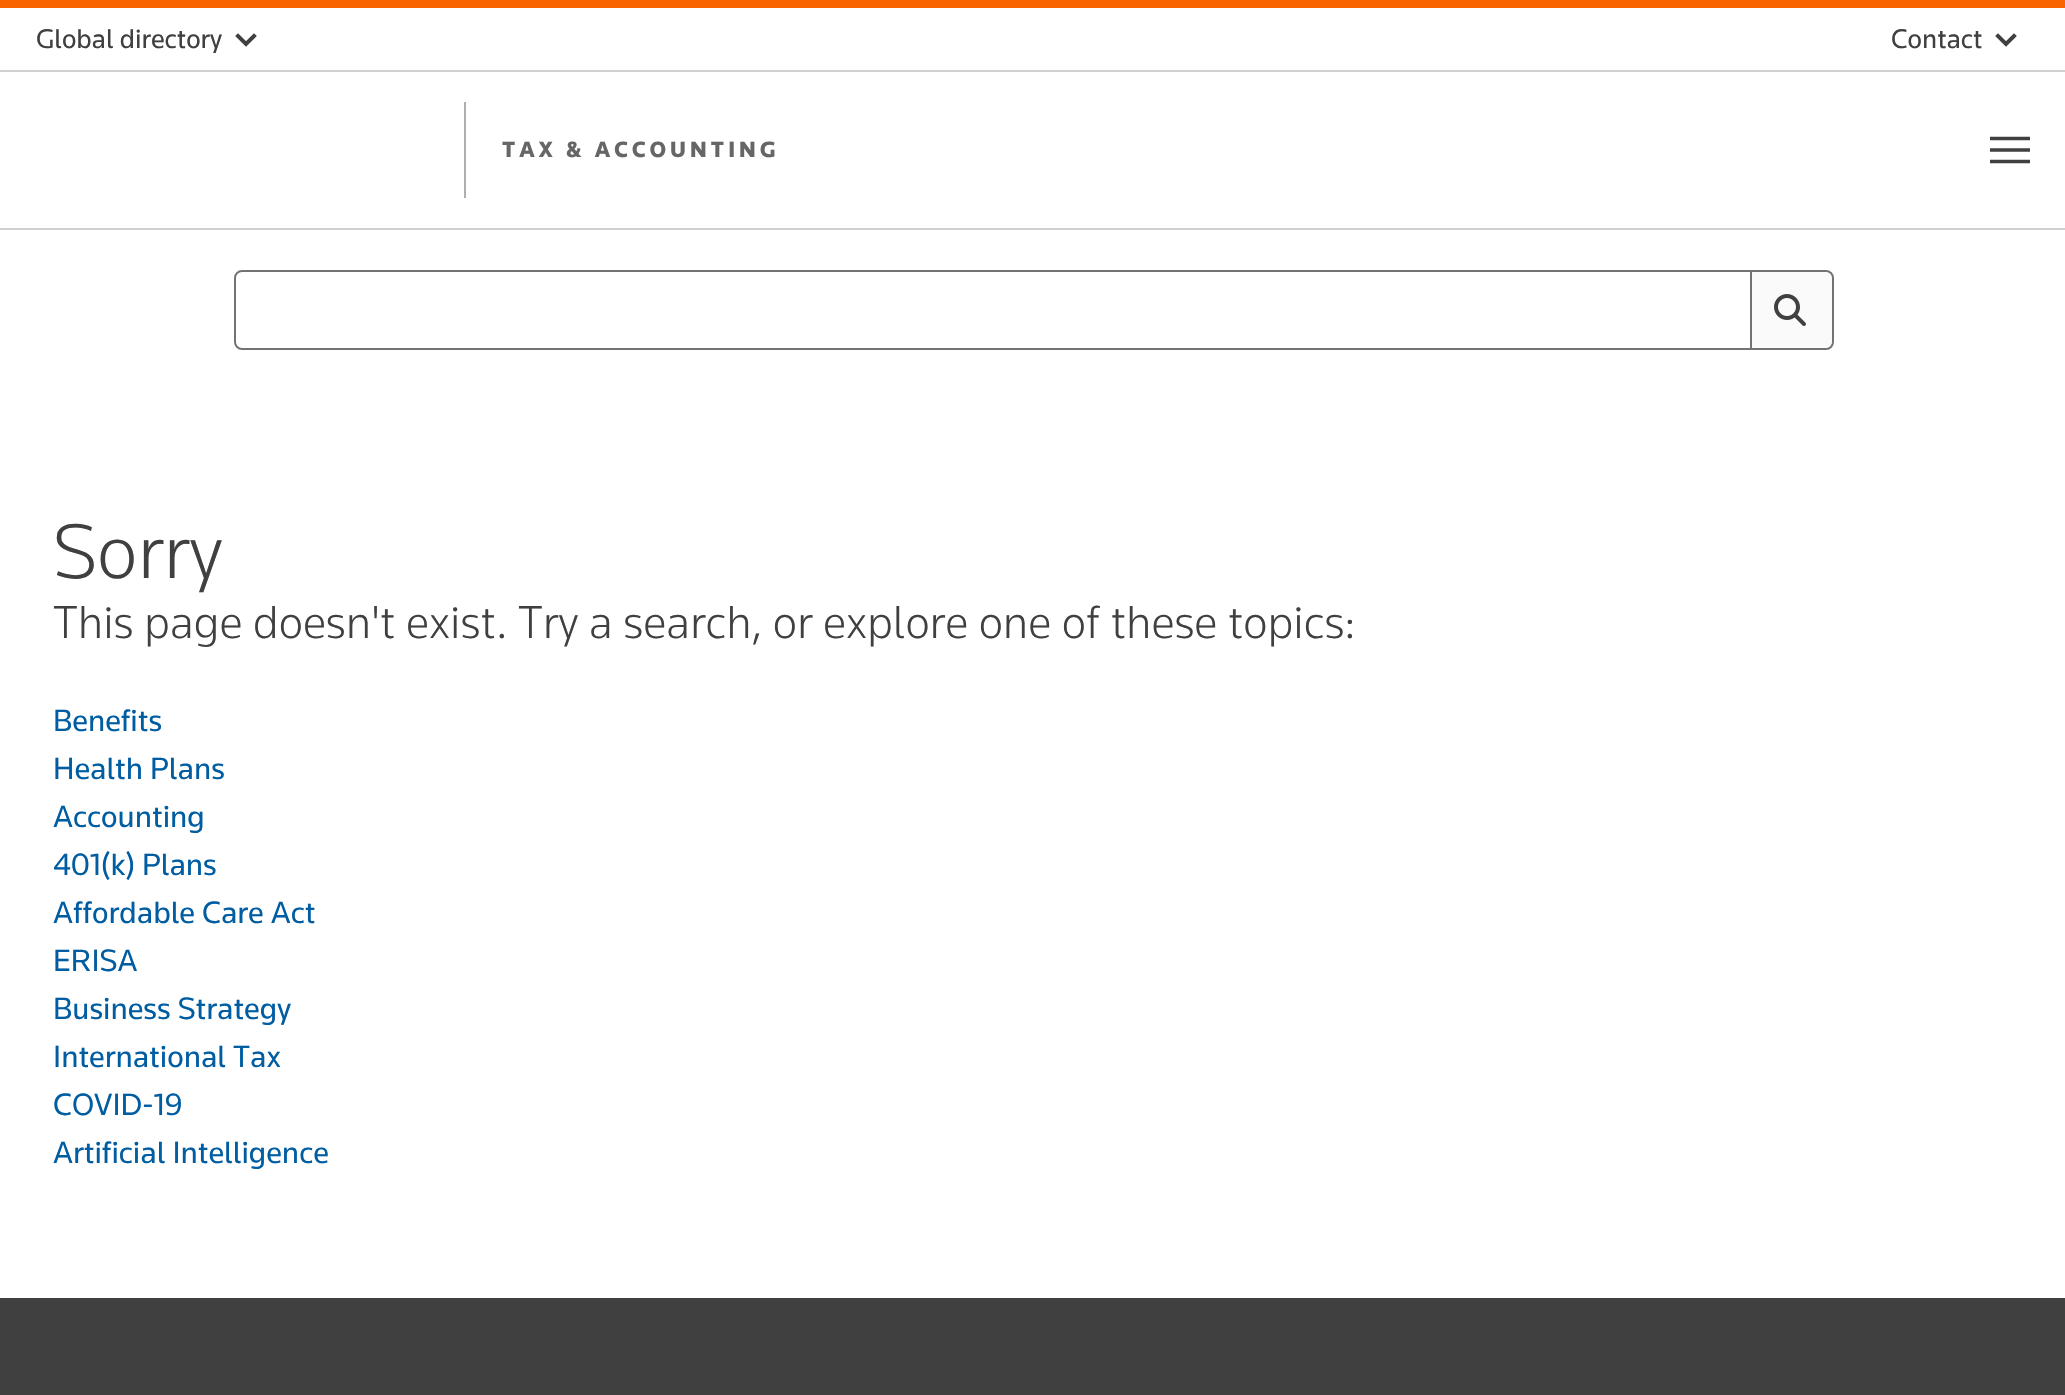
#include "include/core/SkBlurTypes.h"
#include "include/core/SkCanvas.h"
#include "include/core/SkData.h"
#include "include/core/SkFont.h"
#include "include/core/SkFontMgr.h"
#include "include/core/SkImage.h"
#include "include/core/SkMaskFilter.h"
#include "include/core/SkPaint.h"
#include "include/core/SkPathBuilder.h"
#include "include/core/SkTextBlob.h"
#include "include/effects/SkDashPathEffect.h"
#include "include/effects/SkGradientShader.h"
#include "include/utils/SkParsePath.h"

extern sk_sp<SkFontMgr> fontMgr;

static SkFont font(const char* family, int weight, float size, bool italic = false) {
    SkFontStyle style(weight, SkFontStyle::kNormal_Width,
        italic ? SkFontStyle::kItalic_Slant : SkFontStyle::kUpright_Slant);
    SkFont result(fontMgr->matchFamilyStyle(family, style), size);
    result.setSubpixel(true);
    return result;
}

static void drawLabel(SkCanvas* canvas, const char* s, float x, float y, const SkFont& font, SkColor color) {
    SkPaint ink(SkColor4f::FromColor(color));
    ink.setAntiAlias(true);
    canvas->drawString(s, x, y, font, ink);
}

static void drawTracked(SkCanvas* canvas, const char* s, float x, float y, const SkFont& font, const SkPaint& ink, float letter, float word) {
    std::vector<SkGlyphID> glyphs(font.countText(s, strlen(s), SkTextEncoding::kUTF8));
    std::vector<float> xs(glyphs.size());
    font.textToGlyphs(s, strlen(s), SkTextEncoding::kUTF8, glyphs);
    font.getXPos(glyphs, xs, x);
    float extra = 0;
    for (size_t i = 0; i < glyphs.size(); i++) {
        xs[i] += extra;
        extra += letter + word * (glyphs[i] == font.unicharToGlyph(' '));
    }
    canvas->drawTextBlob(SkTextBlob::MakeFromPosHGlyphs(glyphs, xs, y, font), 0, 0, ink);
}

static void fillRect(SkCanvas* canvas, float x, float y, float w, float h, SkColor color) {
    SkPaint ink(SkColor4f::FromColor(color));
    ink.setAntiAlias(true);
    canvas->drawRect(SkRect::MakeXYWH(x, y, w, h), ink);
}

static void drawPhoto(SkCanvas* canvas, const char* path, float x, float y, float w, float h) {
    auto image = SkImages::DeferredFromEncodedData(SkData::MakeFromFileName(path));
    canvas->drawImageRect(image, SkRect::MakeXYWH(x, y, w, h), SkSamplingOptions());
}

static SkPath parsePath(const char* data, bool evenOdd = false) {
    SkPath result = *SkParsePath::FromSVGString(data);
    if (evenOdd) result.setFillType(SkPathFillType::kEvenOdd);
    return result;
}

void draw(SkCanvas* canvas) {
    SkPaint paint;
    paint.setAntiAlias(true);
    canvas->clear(0xFFFFFFFF);
    fillRect(canvas, 0, 0, 2065, 8, 0xFFFA6400);
    fillRect(canvas, 0, 70, 2065, 2, 0xFFD0D0D0);
    SkFont font1 = font("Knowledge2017", 400, 28);
    drawLabel(canvas, "Global directory", 36, 48, font1, 0xFF404040);
    paint.setStroke(true);
    paint.setStrokeWidth(4);
    paint.setStrokeCap(SkPaint::kSquare_Cap);
    paint.setColor(0xFF404040);
    canvas->drawPath(parsePath("M254 36L246 44L238 36"), paint);
    drawLabel(canvas, "Contact", 1891, 48, font1, 0xFF404040);
    canvas->drawPath(parsePath("M2014 36L2006 44L1998 36"), paint);
    fillRect(canvas, 0, 228, 2065, 2, 0xFFD0D0D0);
    fillRect(canvas, 464, 102, 2, 96, 0xFFAFAFAF);
    SkFont font2 = font("Knowledge2017", 900, 23);
    paint.setStroke(false);
    paint.setColor(0xFF666666);
    drawTracked(canvas, "TAX & ACCOUNTING", 502, 157, font2, paint, 4.1f, 0);
    canvas->save();
    canvas->clipRect(SkRect::MakeXYWH(1990, 130, 40, 40));
    paint.setStroke(true);
    paint.setStrokeWidth(3.3f);
    paint.setColor(0xFF404040);
    canvas->drawPath(parsePath("M1991.5 150H2028.5M1991.5 138.5H2028.5M1991.5 161.5H2028.5"), paint);
    canvas->restore();
    paint.setStrokeWidth(2);
    paint.setStrokeCap(SkPaint::kButt_Cap);
    paint.setColor(0xFF737373);
    canvas->drawRoundRect(SkRect::MakeXYWH(235, 271, 1598, 78), 7, 7, paint);
    paint.setStroke(false);
    paint.setColor(0xFFFAFAFA);
    canvas->drawPath(parsePath("M1750 272H1824C1828.5 272 1832 275.5 1832 280V340C1832 344.5 1828.5 348 1824 348H1750Z"), paint);
    fillRect(canvas, 1750, 272, 2, 76, 0xFF737373);
    drawPhoto(canvas, "assets/img1.png", 1774, 294, 32, 32);
    SkFont font3 = font("Knowledge2017", 300, 80);
    drawLabel(canvas, "Sorry", 53, 578, font3, 0xFF404040);
    SkFont font4 = font("Knowledge2017", 300, 48);
    drawLabel(canvas, "This page doesn't exist. Try a search, or explore one of these topics:", 53, 638, font4, 0xFF404040);
    SkFont font5 = font("Knowledge2017", 400, 32);
    drawLabel(canvas, "Benefits", 53, 731, font5, 0xFF005DA2);
    drawLabel(canvas, "Health Plans", 53, 779, font5, 0xFF005DA2);
    drawLabel(canvas, "Accounting", 53, 827, font5, 0xFF005DA2);
    drawLabel(canvas, "401(k) Plans", 53, 875, font5, 0xFF005DA2);
    drawLabel(canvas, "Affordable Care Act", 53, 923, font5, 0xFF005DA2);
    drawLabel(canvas, "ERISA", 53, 971, font5, 0xFF005DA2);
    drawLabel(canvas, "Business Strategy", 53, 1019, font5, 0xFF005DA2);
    drawLabel(canvas, "International Tax", 53, 1067, font5, 0xFF005DA2);
    drawLabel(canvas, "COVID-19", 53, 1115, font5, 0xFF005DA2);
    drawLabel(canvas, "Artificial Intelligence", 53, 1163, font5, 0xFF005DA2);
    fillRect(canvas, 0, 1298, 2065, 97, 0xFF404040);
}
